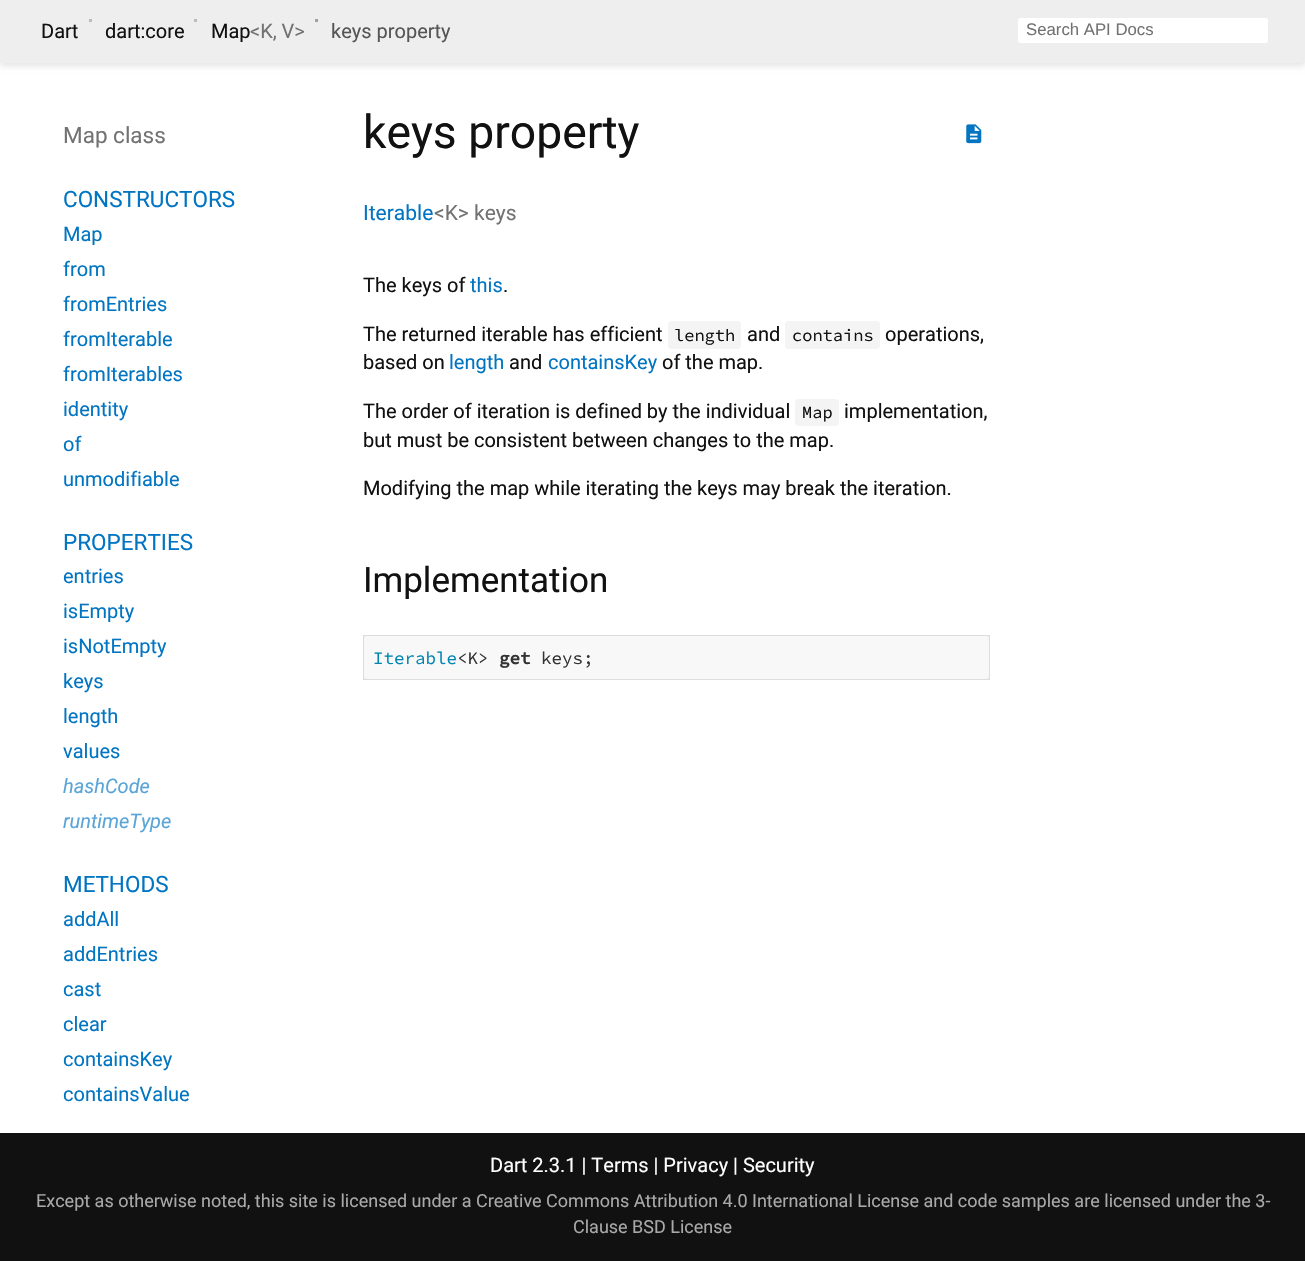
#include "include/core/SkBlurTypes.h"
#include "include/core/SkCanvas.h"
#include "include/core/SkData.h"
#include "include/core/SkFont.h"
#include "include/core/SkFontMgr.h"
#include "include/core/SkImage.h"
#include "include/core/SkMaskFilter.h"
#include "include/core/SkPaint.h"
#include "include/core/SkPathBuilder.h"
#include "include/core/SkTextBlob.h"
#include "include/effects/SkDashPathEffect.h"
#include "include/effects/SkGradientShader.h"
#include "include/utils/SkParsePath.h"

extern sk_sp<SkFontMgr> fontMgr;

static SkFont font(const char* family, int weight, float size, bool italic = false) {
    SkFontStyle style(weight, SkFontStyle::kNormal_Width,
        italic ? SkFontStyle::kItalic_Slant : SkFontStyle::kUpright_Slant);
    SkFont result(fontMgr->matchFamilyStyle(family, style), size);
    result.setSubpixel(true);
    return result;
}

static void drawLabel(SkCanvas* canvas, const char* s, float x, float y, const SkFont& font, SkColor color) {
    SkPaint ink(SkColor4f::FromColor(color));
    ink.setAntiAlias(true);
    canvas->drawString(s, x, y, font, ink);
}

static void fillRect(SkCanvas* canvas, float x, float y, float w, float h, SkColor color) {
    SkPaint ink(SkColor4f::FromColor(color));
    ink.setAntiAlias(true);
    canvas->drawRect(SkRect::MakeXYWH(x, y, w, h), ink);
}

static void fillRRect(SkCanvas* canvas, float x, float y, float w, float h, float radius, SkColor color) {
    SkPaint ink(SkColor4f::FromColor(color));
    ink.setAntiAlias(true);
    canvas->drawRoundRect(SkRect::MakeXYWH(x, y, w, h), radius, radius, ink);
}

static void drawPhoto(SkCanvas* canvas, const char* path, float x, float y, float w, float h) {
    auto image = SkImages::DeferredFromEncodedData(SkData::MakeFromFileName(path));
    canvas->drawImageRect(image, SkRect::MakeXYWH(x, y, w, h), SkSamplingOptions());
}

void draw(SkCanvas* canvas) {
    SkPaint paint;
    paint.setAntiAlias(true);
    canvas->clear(0xFFFFFFFF);
    paint.setColor(0x1A000000);
    paint.setMaskFilter(SkMaskFilter::MakeBlur(kNormal_SkBlurStyle, 3));
    canvas->drawRect(SkRect::MakeXYWH(0, 4, 1305, 62), paint);
    paint.setMaskFilter(nullptr);
    fillRect(canvas, 0, 0, 1305, 63, 0xFFEEEEEE);
    SkFont font1 = font("Roboto", 400, 20);
    drawLabel(canvas, "Dart", 41, 38, font1, 0xFF111111);
    fillRect(canvas, 89, 19, 3, 3, 0xFFBBBBBB);
    drawLabel(canvas, "dart:core", 105, 38, font1, 0xFF111111);
    fillRect(canvas, 194, 19, 3, 3, 0xFFBBBBBB);
    drawLabel(canvas, "Map", 211, 38, font1, 0xFF111111);
    drawLabel(canvas, "<K, V>", 250, 38, font1, 0xFF727272);
    fillRect(canvas, 315, 19, 3, 3, 0xFFA1A1A1);
    drawLabel(canvas, "keys property", 331, 38, font1, 0xFF555555);
    fillRRect(canvas, 1018, 18, 250, 25, 2.5f, 0xFFFFFFFF);
    SkFont font2 = font("Liberation Sans", 400, 16.75f);
    drawLabel(canvas, "Search API Docs", 1026, 35, font2, 0xFF727272);
    SkFont font3 = font("Roboto", 400, 22.5f);
    drawLabel(canvas, "Map class", 63, 143, font3, 0xFF727272);
    drawLabel(canvas, "CONSTRUCTORS", 63, 207, font3, 0xFF0175C2);
    drawLabel(canvas, "Map", 63, 241, font1, 0xFF0175C2);
    drawLabel(canvas, "from", 63, 276, font1, 0xFF0175C2);
    drawLabel(canvas, "fromEntries", 63, 311, font1, 0xFF0175C2);
    drawLabel(canvas, "fromIterable", 63, 346, font1, 0xFF0175C2);
    drawLabel(canvas, "fromIterables", 63, 381, font1, 0xFF0175C2);
    drawLabel(canvas, "identity", 63, 416, font1, 0xFF0175C2);
    drawLabel(canvas, "of", 63, 451, font1, 0xFF0175C2);
    drawLabel(canvas, "unmodifiable", 63, 486, font1, 0xFF0175C2);
    drawLabel(canvas, "PROPERTIES", 63, 550, font3, 0xFF0175C2);
    drawLabel(canvas, "entries", 63, 583, font1, 0xFF0175C2);
    drawLabel(canvas, "isEmpty", 63, 618, font1, 0xFF0175C2);
    drawLabel(canvas, "isNotEmpty", 63, 653, font1, 0xFF0175C2);
    drawLabel(canvas, "keys", 63, 688, font1, 0xFF0175C2);
    drawLabel(canvas, "length", 63, 723, font1, 0xFF0175C2);
    drawLabel(canvas, "values", 63, 758, font1, 0xFF0175C2);
    SkFont font4 = font("Roboto", 400, 20, true);
    drawLabel(canvas, "hashCode", 63, 793, font4, 0xFF5AA5D7);
    drawLabel(canvas, "runtimeType", 63, 828, font4, 0xFF5AA5D7);
    drawLabel(canvas, "METHODS", 63, 892, font3, 0xFF0175C2);
    drawLabel(canvas, "addAll", 63, 926, font1, 0xFF0175C2);
    drawLabel(canvas, "addEntries", 63, 961, font1, 0xFF0175C2);
    drawLabel(canvas, "cast", 63, 996, font1, 0xFF0175C2);
    drawLabel(canvas, "clear", 63, 1031, font1, 0xFF0175C2);
    drawLabel(canvas, "containsKey", 63, 1066, font1, 0xFF0175C2);
    drawLabel(canvas, "containsValue", 63, 1101, font1, 0xFF0175C2);
    SkFont font5 = font("Roboto", 400, 46.25f);
    drawLabel(canvas, "keys property", 363, 148, font5, 0xFF111111);
    drawPhoto(canvas, "assets/img1.png", 966, 124, 16, 20);
    SkFont font6 = font("Roboto", 400, 21);
    drawLabel(canvas, "Iterable", 363, 220, font6, 0xFF0175C2);
    drawLabel(canvas, "<K> keys", 434, 220, font6, 0xFF727272);
    drawLabel(canvas, "The keys of", 363, 292, font1, 0xFF111111);
    drawLabel(canvas, "this", 470, 292, font1, 0xFF0175C2);
    drawLabel(canvas, ".", 503, 292, font1, 0xFF111111);
    drawLabel(canvas, "The returned iterable has efficient", 363, 341, font1, 0xFF111111);
    fillRRect(canvas, 668, 321, 73, 28, 4, 0xFFF4F4F4);
    SkFont font7 = font("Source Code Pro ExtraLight", 400, 17);
    drawLabel(canvas, "length", 674, 341, font7, 0xFF111111);
    drawLabel(canvas, "and", 747, 341, font1, 0xFF111111);
    fillRRect(canvas, 785, 321, 95, 28, 4, 0xFFF4F4F4);
    drawLabel(canvas, "contains", 792, 341, font7, 0xFF111111);
    drawLabel(canvas, "operations,", 885, 341, font1, 0xFF111111);
    drawLabel(canvas, "based on", 363, 369, font1, 0xFF111111);
    drawLabel(canvas, "length", 449, 369, font1, 0xFF0175C2);
    drawLabel(canvas, "and", 509, 369, font1, 0xFF111111);
    drawLabel(canvas, "containsKey", 548, 369, font1, 0xFF0175C2);
    drawLabel(canvas, "of the map.", 662, 369, font1, 0xFF111111);
    drawLabel(canvas, "The order of iteration is defined by the individual", 363, 418, font1, 0xFF111111);
    fillRRect(canvas, 795, 399, 44, 27, 4, 0xFFF4F4F4);
    drawLabel(canvas, "Map", 802, 418, font7, 0xFF111111);
    drawLabel(canvas, "implementation,", 844, 418, font1, 0xFF111111);
    drawLabel(canvas, "but must be consistent between changes to the map.", 363, 447, font1, 0xFF111111);
    drawLabel(canvas, "Modifying the map while iterating the keys may break the iteration.", 363, 495, font1, 0xFF111111);
    SkFont font8 = font("Roboto", 400, 35);
    drawLabel(canvas, "Implementation", 363, 592, font8, 0xFF111111);
    paint.setColor(0xFFEEEEEE);
    canvas->drawRect(SkRect::MakeXYWH(363.5f, 635.5f, 626, 44), paint);
    paint.setStroke(true);
    paint.setStrokeWidth(1);
    paint.setColor(0xFFDDDDDD);
    canvas->drawRect(SkRect::MakeXYWH(363.5f, 635.5f, 626, 44), paint);
    fillRRect(canvas, 364, 636, 625, 43, 4, 0xFFF8F8F8);
    SkFont font9 = font("Source Code Pro ExtraLight", 400, 17.5f);
    drawLabel(canvas, "Iterable", 373, 664, font9, 0xFF0086B3);
    drawLabel(canvas, "<K>", 457, 664, font9, 0xFF333333);
    SkFont font10 = font("Source Code Pro ExtraLight", 700, 17.5f);
    drawLabel(canvas, "get", 499, 664, font10, 0xFF333333);
    drawLabel(canvas, "keys;", 541, 664, font9, 0xFF333333);
    fillRect(canvas, 0, 1133, 1305, 128, 0xFF111111);
    drawLabel(canvas, "Dart 2.3.1 | Terms | Privacy | Security", 490, 1172, font1, 0xFFFFFFFF);
    SkFont font11 = font("Roboto", 400, 18);
    drawLabel(canvas, "Except as otherwise noted, this site is licensed under a Creative Commons Attribution 4.0 International License and code samples are licensed under the 3-", 36, 1207, font11, 0xFFA9A9A9);
    drawLabel(canvas, "Clause BSD License", 573, 1233, font11, 0xFFA9A9A9);
}
